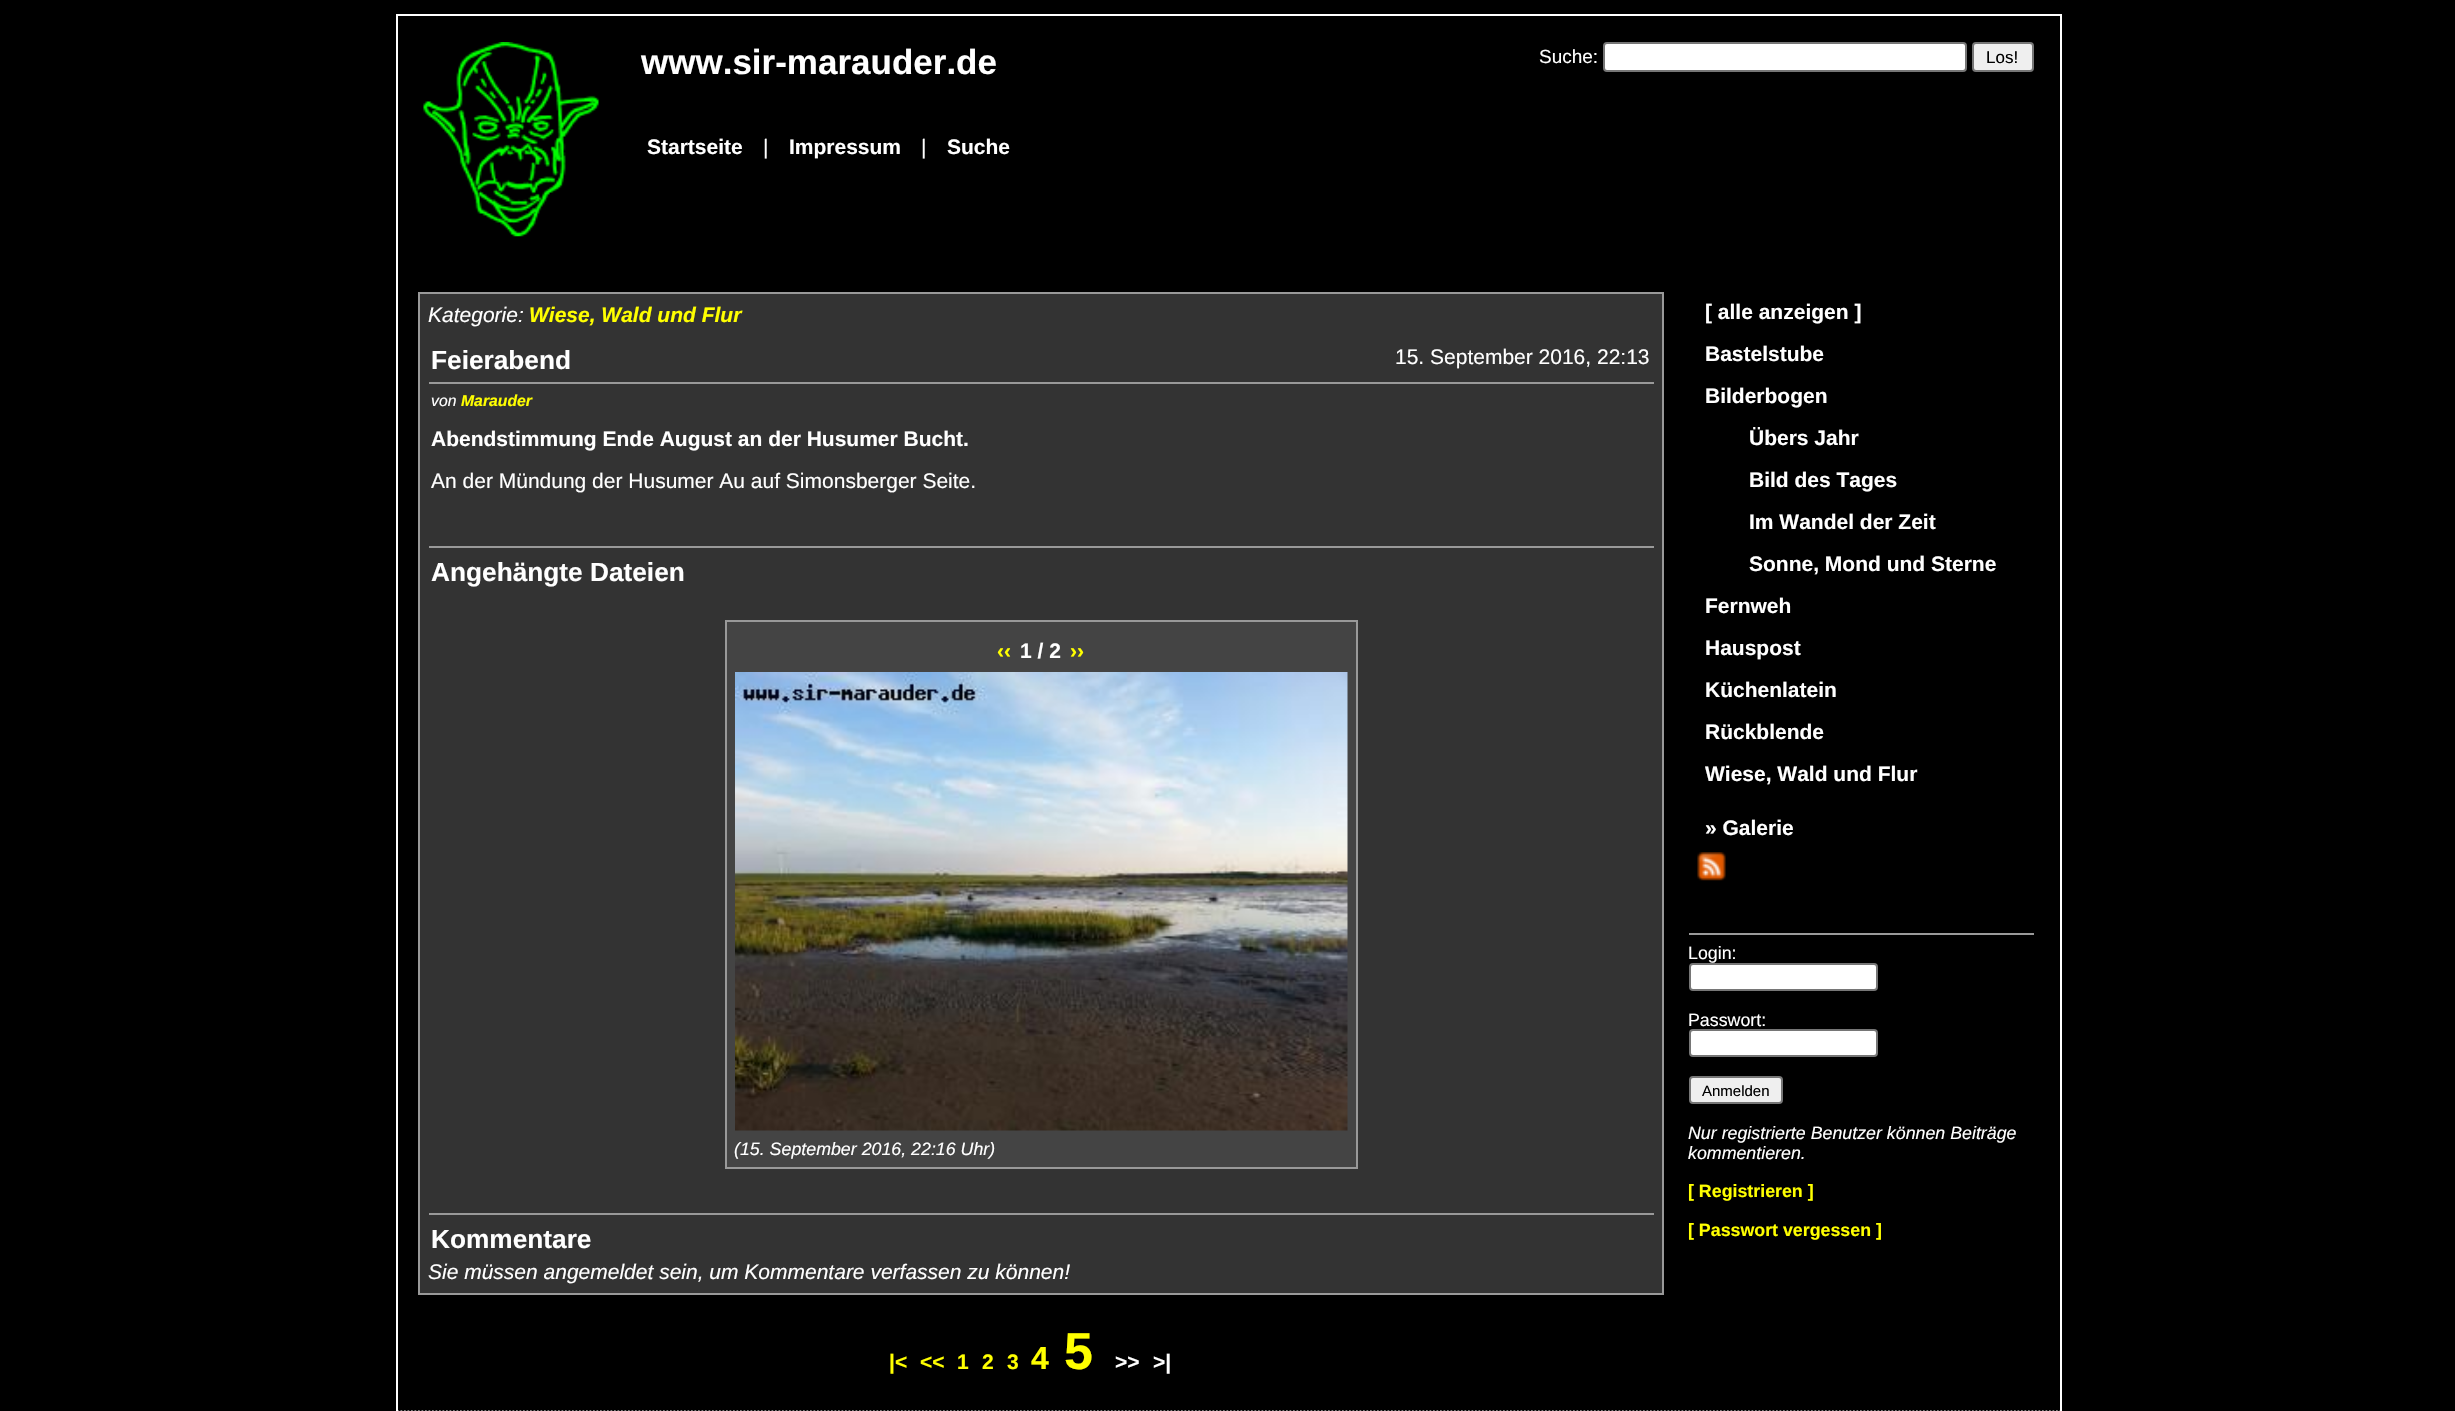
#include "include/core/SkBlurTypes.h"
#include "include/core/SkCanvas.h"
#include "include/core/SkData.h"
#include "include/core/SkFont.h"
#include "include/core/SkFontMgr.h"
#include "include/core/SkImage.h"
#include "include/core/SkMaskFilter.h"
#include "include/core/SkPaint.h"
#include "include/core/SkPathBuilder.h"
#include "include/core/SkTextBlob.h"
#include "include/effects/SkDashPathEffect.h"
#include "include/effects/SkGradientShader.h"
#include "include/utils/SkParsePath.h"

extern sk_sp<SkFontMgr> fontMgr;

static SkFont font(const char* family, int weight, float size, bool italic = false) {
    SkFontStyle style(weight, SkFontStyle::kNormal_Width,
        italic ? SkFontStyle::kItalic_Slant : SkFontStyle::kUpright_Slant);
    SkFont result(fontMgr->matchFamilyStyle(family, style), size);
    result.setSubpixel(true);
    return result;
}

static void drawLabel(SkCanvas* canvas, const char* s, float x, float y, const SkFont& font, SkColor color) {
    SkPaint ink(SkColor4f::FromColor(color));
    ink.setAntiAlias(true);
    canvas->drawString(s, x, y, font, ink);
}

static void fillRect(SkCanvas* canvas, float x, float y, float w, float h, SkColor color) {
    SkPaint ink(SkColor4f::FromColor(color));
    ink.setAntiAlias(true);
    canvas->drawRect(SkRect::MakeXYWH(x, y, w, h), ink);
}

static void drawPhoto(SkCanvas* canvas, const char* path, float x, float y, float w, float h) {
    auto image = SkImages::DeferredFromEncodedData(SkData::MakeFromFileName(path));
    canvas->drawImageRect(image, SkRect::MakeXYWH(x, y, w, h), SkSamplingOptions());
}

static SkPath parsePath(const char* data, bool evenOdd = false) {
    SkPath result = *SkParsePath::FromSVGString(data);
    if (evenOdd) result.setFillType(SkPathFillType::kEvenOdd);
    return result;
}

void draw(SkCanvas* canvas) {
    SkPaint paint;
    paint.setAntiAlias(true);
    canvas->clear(0xFF000000);
    paint.setStroke(true);
    paint.setStrokeWidth(2);
    paint.setColor(0xFFFFFFFF);
    canvas->drawRect(SkRect::MakeXYWH(397, 15, 1664, 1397), paint);
    drawPhoto(canvas, "assets/img1.png", 423, 42, 176, 195);
    SkFont font1 = font("Liberation Sans", 700, 35);
    drawLabel(canvas, "www.sir-marauder.de", 641, 74, font1, 0xFFFFFFFF);
    SkFont font2 = font("Liberation Sans", 400, 19);
    drawLabel(canvas, "Suche:", 1539, 63, font2, 0xFFFFFFFF);
    paint.setStroke(false);
    canvas->drawRoundRect(SkRect::MakeXYWH(1604, 43, 362, 28), 3, 3, paint);
    paint.setStroke(true);
    paint.setColor(0xFF767676);
    canvas->drawRoundRect(SkRect::MakeXYWH(1604, 43, 362, 28), 3, 3, paint);
    paint.setStroke(false);
    paint.setColor(0xFFEFEFEF);
    canvas->drawRoundRect(SkRect::MakeXYWH(1973, 43, 60, 28), 3, 3, paint);
    paint.setStroke(true);
    paint.setColor(0xFF767676);
    canvas->drawRoundRect(SkRect::MakeXYWH(1973, 43, 60, 28), 3, 3, paint);
    SkFont font3 = font("Liberation Sans", 400, 17);
    drawLabel(canvas, "Los!", 1986, 63, font3, 0xFF000000);
    SkFont font4 = font("Liberation Sans", 700, 21);
    drawLabel(canvas, "Startseite", 647, 154, font4, 0xFFFFFFFF);
    SkFont font5 = font("Liberation Sans", 400, 21);
    drawLabel(canvas, "|", 763, 154, font5, 0xFFFFFFFF);
    drawLabel(canvas, "Impressum", 789, 154, font4, 0xFFFFFFFF);
    drawLabel(canvas, "|", 921, 154, font5, 0xFFFFFFFF);
    drawLabel(canvas, "Suche", 947, 154, font4, 0xFFFFFFFF);
    paint.setStroke(false);
    paint.setColor(0xFF333333);
    canvas->drawRect(SkRect::MakeXYWH(419, 293, 1244, 1001), paint);
    paint.setStroke(true);
    paint.setColor(0xFF999999);
    canvas->drawRect(SkRect::MakeXYWH(419, 293, 1244, 1001), paint);
    SkFont font6 = font("Liberation Sans", 400, 21, true);
    drawLabel(canvas, "Kategorie:", 428, 322, font6, 0xFFFFFFFF);
    SkFont font7 = font("Liberation Sans", 700, 21, true);
    drawLabel(canvas, "Wiese, Wald und Flur", 529, 322, font7, 0xFFFFFF00);
    fillRect(canvas, 429, 382, 1225, 2, 0xFF999999);
    SkFont font8 = font("Liberation Sans", 700, 26.25f);
    drawLabel(canvas, "Feierabend", 431, 369, font8, 0xFFFFFFFF);
    drawLabel(canvas, "15. September 2016, 22:13", 1395, 364, font5, 0xFFFFFFFF);
    SkFont font9 = font("Liberation Sans", 400, 15.75f, true);
    drawLabel(canvas, "von", 431, 406, font9, 0xFFFFFFFF);
    SkFont font10 = font("Liberation Sans", 700, 15.75f, true);
    drawLabel(canvas, "Marauder", 461, 406, font10, 0xFFFFFF00);
    drawLabel(canvas, "Abendstimmung Ende August an der Husumer Bucht.", 431, 446, font4, 0xFFFFFFFF);
    drawLabel(canvas, "An der Mündung der Husumer Au auf Simonsberger Seite.", 431, 488, font5, 0xFFFFFFFF);
    fillRect(canvas, 429, 546, 1225, 2, 0xFF999999);
    drawLabel(canvas, "Angehängte Dateien", 431, 581, font8, 0xFFFFFFFF);
    paint.setStroke(false);
    paint.setColor(0xFF444444);
    canvas->drawRect(SkRect::MakeXYWH(726, 621, 631, 547), paint);
    paint.setStroke(true);
    paint.setColor(0xFF999999);
    canvas->drawRect(SkRect::MakeXYWH(726, 621, 631, 547), paint);
    drawLabel(canvas, "‹‹", 997, 658, font4, 0xFFFFFF00);
    drawLabel(canvas, "1 / 2", 1020, 658, font4, 0xFFFFFFFF);
    drawLabel(canvas, "››", 1070, 658, font4, 0xFFFFFF00);
    drawPhoto(canvas, "assets/img2.png", 735, 672, 613, 459);
    SkFont font11 = font("Liberation Sans", 400, 17.8f, true);
    drawLabel(canvas, "(15. September 2016, 22:16 Uhr)", 734, 1155, font11, 0xFFFFFFFF);
    fillRect(canvas, 429, 1213, 1225, 2, 0xFF999999);
    drawLabel(canvas, "Kommentare", 431, 1248, font8, 0xFFFFFFFF);
    drawLabel(canvas, "Sie müssen angemeldet sein, um Kommentare verfassen zu können!", 428, 1279, font6, 0xFFFFFFFF);
    drawLabel(canvas, "|<", 889, 1369, font4, 0xFFFFFF00);
    drawLabel(canvas, "<<", 920, 1369, font4, 0xFFFFFF00);
    drawLabel(canvas, "1", 957, 1369, font4, 0xFFFFFF00);
    drawLabel(canvas, "2", 982, 1369, font4, 0xFFFFFF00);
    drawLabel(canvas, "3", 1007, 1369, font4, 0xFFFFFF00);
    SkFont font12 = font("Liberation Sans", 700, 32);
    drawLabel(canvas, "4", 1031, 1369, font12, 0xFFFFFF00);
    SkFont font13 = font("Liberation Sans", 700, 52);
    drawLabel(canvas, "5", 1064, 1369, font13, 0xFFFFFF00);
    drawLabel(canvas, ">>", 1115, 1369, font4, 0xFFFFFFFF);
    drawLabel(canvas, ">|", 1153, 1369, font4, 0xFFFFFFFF);
    drawLabel(canvas, "[ alle anzeigen ]", 1705, 319, font4, 0xFFFFFFFF);
    drawLabel(canvas, "Bastelstube", 1705, 361, font4, 0xFFFFFFFF);
    drawLabel(canvas, "Bilderbogen", 1705, 403, font4, 0xFFFFFFFF);
    drawLabel(canvas, "Übers Jahr", 1749, 445, font4, 0xFFFFFFFF);
    drawLabel(canvas, "Bild des Tages", 1749, 487, font4, 0xFFFFFFFF);
    drawLabel(canvas, "Im Wandel der Zeit", 1749, 529, font4, 0xFFFFFFFF);
    drawLabel(canvas, "Sonne, Mond und Sterne", 1749, 571, font4, 0xFFFFFFFF);
    drawLabel(canvas, "Fernweh", 1705, 613, font4, 0xFFFFFFFF);
    drawLabel(canvas, "Hauspost", 1705, 655, font4, 0xFFFFFFFF);
    drawLabel(canvas, "Küchenlatein", 1705, 697, font4, 0xFFFFFFFF);
    drawLabel(canvas, "Rückblende", 1705, 739, font4, 0xFFFFFFFF);
    drawLabel(canvas, "Wiese, Wald und Flur", 1705, 781, font4, 0xFFFFFFFF);
    drawLabel(canvas, "» Galerie", 1705, 835, font4, 0xFFFFFFFF);
    drawPhoto(canvas, "assets/img3.png", 1697, 852, 29, 29);
    fillRect(canvas, 1689, 933, 345, 2, 0xFF999999);
    SkFont font14 = font("Liberation Sans", 400, 17.8f);
    drawLabel(canvas, "Login:", 1688, 959, font14, 0xFFFFFFFF);
    paint.setStroke(false);
    paint.setColor(0xFFFFFFFF);
    canvas->drawRoundRect(SkRect::MakeXYWH(1690, 964, 187, 26), 3, 3, paint);
    paint.setStroke(true);
    paint.setColor(0xFF767676);
    canvas->drawRoundRect(SkRect::MakeXYWH(1690, 964, 187, 26), 3, 3, paint);
    drawLabel(canvas, "Passwort:", 1688, 1026, font14, 0xFFFFFFFF);
    paint.setStroke(false);
    paint.setColor(0xFFFFFFFF);
    canvas->drawRoundRect(SkRect::MakeXYWH(1690, 1030, 187, 26), 3, 3, paint);
    paint.setStroke(true);
    paint.setColor(0xFF767676);
    canvas->drawRoundRect(SkRect::MakeXYWH(1690, 1030, 187, 26), 3, 3, paint);
    paint.setStroke(false);
    paint.setColor(0xFFEFEFEF);
    canvas->drawRoundRect(SkRect::MakeXYWH(1690, 1077, 92, 26), 3, 3, paint);
    paint.setStroke(true);
    paint.setColor(0xFF767676);
    canvas->drawRoundRect(SkRect::MakeXYWH(1690, 1077, 92, 26), 3, 3, paint);
    SkFont font15 = font("Liberation Sans", 400, 15);
    drawLabel(canvas, "Anmelden", 1702, 1096, font15, 0xFF000000);
    drawLabel(canvas, "Nur registrierte Benutzer können Beiträge", 1688, 1139, font11, 0xFFFFFFFF);
    drawLabel(canvas, "kommentieren.", 1688, 1159, font11, 0xFFFFFFFF);
    SkFont font16 = font("Liberation Sans", 700, 17.8f);
    drawLabel(canvas, "[ Registrieren ]", 1688, 1197, font16, 0xFFFFFF00);
    drawLabel(canvas, "[ Passwort vergessen ]", 1688, 1236, font16, 0xFFFFFF00);
    paint.setStrokeWidth(1.8f);
    paint.setColor(0xFFFFFFFF);
    paint.setPathEffect(SkDashPathEffect::Make({{1.75f, 1.75f}}, 0));
    canvas->drawPath(parsePath("M397 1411.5H2060"), paint);
    paint.setPathEffect(nullptr);
}
